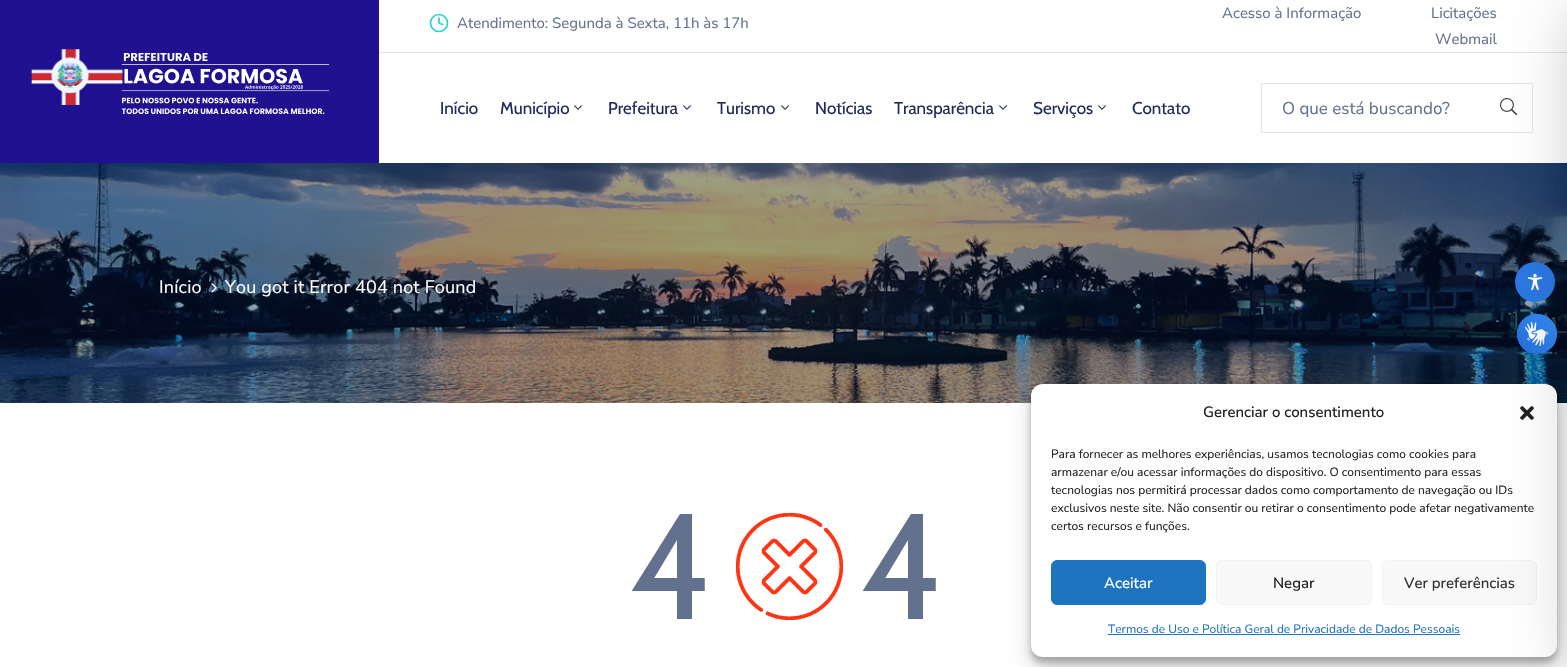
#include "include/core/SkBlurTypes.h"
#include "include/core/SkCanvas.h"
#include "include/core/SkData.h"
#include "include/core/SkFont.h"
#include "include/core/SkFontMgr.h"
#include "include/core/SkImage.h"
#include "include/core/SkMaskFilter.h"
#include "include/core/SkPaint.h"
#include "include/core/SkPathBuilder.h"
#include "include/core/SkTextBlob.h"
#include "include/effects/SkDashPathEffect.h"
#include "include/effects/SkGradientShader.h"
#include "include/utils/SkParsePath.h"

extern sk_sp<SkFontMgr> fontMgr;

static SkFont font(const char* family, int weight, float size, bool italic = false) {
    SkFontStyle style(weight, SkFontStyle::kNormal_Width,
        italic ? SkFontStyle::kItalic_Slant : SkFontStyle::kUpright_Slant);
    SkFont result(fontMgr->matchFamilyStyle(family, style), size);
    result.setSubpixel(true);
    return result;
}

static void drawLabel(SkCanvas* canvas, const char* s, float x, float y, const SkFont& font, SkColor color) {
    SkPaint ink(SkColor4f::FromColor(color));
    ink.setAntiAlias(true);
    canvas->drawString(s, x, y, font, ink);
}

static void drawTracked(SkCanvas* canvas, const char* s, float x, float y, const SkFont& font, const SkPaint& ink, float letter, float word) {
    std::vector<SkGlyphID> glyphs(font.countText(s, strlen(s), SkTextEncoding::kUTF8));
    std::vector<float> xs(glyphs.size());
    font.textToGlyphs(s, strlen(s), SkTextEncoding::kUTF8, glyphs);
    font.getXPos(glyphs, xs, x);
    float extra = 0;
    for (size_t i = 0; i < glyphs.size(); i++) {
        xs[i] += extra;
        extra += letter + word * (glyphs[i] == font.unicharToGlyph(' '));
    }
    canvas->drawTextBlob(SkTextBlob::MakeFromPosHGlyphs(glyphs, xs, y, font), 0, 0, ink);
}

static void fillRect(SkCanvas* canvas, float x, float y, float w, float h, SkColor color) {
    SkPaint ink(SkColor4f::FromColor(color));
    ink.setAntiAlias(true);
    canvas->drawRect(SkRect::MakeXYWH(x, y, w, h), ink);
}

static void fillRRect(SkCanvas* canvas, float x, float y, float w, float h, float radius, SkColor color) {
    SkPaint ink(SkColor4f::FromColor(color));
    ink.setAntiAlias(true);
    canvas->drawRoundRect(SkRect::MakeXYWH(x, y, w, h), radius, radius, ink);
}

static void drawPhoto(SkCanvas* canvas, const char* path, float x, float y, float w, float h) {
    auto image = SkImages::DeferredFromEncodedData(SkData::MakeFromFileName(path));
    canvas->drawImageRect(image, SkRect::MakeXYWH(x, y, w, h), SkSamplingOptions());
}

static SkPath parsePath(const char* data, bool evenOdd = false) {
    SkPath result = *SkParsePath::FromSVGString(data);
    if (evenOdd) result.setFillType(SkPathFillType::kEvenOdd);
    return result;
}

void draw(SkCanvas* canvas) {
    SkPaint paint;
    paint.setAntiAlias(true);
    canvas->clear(0xFFFFFFFF);
    fillRect(canvas, 0, 0, 379, 163, 0xFF1F118F);
    drawPhoto(canvas, "assets/img1.png", 31, 49, 299, 65);
    fillRect(canvas, 379, 52, 1188, 1, 0xFFE5E5E5);
    paint.setStroke(true);
    paint.setStrokeWidth(1.7f);
    paint.setColor(0xFF23D3D3);
    canvas->drawCircle(439, 23, 8.5f, paint);
    paint.setStrokeCap(SkPaint::kRound_Cap);
    paint.setStrokeJoin(SkPaint::kRound_Join);
    canvas->drawPath(parsePath("M439 18V23L442.5 24.5"), paint);
    SkFont font1 = font("Nunito Sans", 400, 15);
    drawLabel(canvas, "Atendimento: Segunda à Sexta, 11h às 17h", 457, 28, font1, 0xFF62718D);
    drawLabel(canvas, "Acesso à Informação", 1222, 18, font1, 0xFF62718D);
    drawLabel(canvas, "Licitações", 1431, 18, font1, 0xFF62718D);
    drawLabel(canvas, "Webmail", 1435, 44, font1, 0xFF62718D);
    SkFont font2 = font("Cabin", 400, 17);
    drawLabel(canvas, "Início", 440, 114, font2, 0xFF202B5D);
    drawLabel(canvas, "Município", 500, 114, font2, 0xFF202B5D);
    drawPhoto(canvas, "assets/img2.png", 574, 105, 8, 5);
    drawLabel(canvas, "Prefeitura", 608, 114, font2, 0xFF202B5D);
    drawPhoto(canvas, "assets/img2.png", 683, 105, 8, 5);
    drawLabel(canvas, "Turismo", 717, 114, font2, 0xFF202B5D);
    drawPhoto(canvas, "assets/img2.png", 781, 105, 8, 5);
    drawLabel(canvas, "Notícias", 815, 114, font2, 0xFF202B5D);
    drawLabel(canvas, "Transparência", 894, 114, font2, 0xFF202B5D);
    drawPhoto(canvas, "assets/img2.png", 999, 105, 8, 5);
    drawLabel(canvas, "Serviços", 1033, 114, font2, 0xFF202B5D);
    drawPhoto(canvas, "assets/img2.png", 1098, 105, 8, 5);
    drawLabel(canvas, "Contato", 1132, 114, font2, 0xFF202B5D);
    fillRect(canvas, 1261, 83, 272, 1, 0xFFE5E5E5);
    fillRect(canvas, 1261, 132, 272, 1, 0xFFE5E5E5);
    fillRect(canvas, 1261, 83, 1, 50, 0xFFE5E5E5);
    SkFont font3 = font("Nunito Sans", 400, 17);
    drawLabel(canvas, "O que está buscando?", 1282, 114, font3, 0xFF62718D);
    fillRect(canvas, 1532, 83, 1, 50, 0xFFE5E5E5);
    drawPhoto(canvas, "assets/img3.png", 1500, 98, 17, 18);
    drawPhoto(canvas, "assets/img4.png", 0, 163, 1567, 240);
    SkFont font4 = font("Nunito Sans", 400, 18);
    paint.setStroke(false);
    paint.setColor(0xFFFFFFFF);
    drawTracked(canvas, "Início", 159, 293, font4, paint, 0.2f, 0);
    drawPhoto(canvas, "assets/img5.png", 211, 283, 6, 10);
    drawTracked(canvas, "You got it Error 404 not Found", 225, 293, font4, paint, 0.2f, 0);
    drawPhoto(canvas, "assets/img6.png", 631, 513, 305, 107);
    paint.setColor(0xFF2B78E3);
    canvas->drawCircle(1535, 282, 20, paint);
    drawPhoto(canvas, "assets/img7.png", 1527, 273, 16, 17);
    drawPhoto(canvas, "assets/img8.png", 1517, 314, 40, 40);
    drawPhoto(canvas, "assets/img9.png", 1517, 314, 40, 40);
    paint.setColor(0x3B000000);
    paint.setMaskFilter(SkMaskFilter::MakeBlur(kNormal_SkBlurStyle, 3));
    canvas->drawRoundRect(SkRect::MakeXYWH(1031, 390, 526, 273), 12, 12, paint);
    paint.setMaskFilter(nullptr);
    paint.setColor(0x30000000);
    paint.setMaskFilter(SkMaskFilter::MakeBlur(kNormal_SkBlurStyle, 10));
    canvas->drawRoundRect(SkRect::MakeXYWH(1031, 394, 526, 273), 12, 12, paint);
    paint.setMaskFilter(nullptr);
    fillRRect(canvas, 1031, 384, 526, 273, 12, 0xFFFFFFFF);
    drawPhoto(canvas, "assets/img10.png", 1520, 406, 14, 14);
    paint.setColor(0xFFF9F9F9);
    canvas->drawRoundRect(SkRect::MakeXYWH(1382.5f, 560.5f, 154, 44), 5.5f, 5.5f, paint);
    paint.setStroke(true);
    paint.setStrokeWidth(1);
    paint.setStrokeCap(SkPaint::kButt_Cap);
    paint.setStrokeJoin(SkPaint::kMiter_Join);
    paint.setColor(0xFFF2F2F2);
    canvas->drawRoundRect(SkRect::MakeXYWH(1382.5f, 560.5f, 154, 44), 5.5f, 5.5f, paint);
    paint.setStroke(false);
    paint.setColor(0x33000000);
    paint.setMaskFilter(SkMaskFilter::MakeBlur(kNormal_SkBlurStyle, 30));
    canvas->drawRect(SkRect::MakeXYWH(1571, 10, 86, 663), paint);
    paint.setMaskFilter(nullptr);
    SkFont font5 = font("Nunito Sans", 500, 15);
    drawLabel(canvas, "Gerenciar o consentimento", 1203, 417, font5, 0xFF222222);
    SkFont font6 = font("Nunito Sans", 400, 12);
    drawLabel(canvas, "Para fornecer as melhores experiências, usamos tecnologias como cookies para", 1051, 458, font6, 0xFF222222);
    drawLabel(canvas, "armazenar e/ou acessar informações do dispositivo. O consentimento para essas", 1051, 476, font6, 0xFF222222);
    drawLabel(canvas, "tecnologias nos permitirá processar dados como comportamento de navegação ou IDs", 1051, 494, font6, 0xFF222222);
    drawLabel(canvas, "exclusivos neste site. Não consentir ou retirar o consentimento pode afetar negativamente", 1051, 512, font6, 0xFF222222);
    drawLabel(canvas, "certos recursos e funções.", 1051, 530, font6, 0xFF222222);
    paint.setColor(0xFF1E73BE);
    canvas->drawRoundRect(SkRect::MakeXYWH(1051.5f, 560.5f, 154, 44), 5.5f, 5.5f, paint);
    paint.setStroke(true);
    canvas->drawRoundRect(SkRect::MakeXYWH(1051.5f, 560.5f, 154, 44), 5.5f, 5.5f, paint);
    drawLabel(canvas, "Aceitar", 1104, 588, font5, 0xFFFFFFFF);
    paint.setStroke(false);
    paint.setColor(0xFFF9F9F9);
    canvas->drawRoundRect(SkRect::MakeXYWH(1216.5f, 560.5f, 155, 44), 5.5f, 5.5f, paint);
    paint.setStroke(true);
    paint.setColor(0xFFF2F2F2);
    canvas->drawRoundRect(SkRect::MakeXYWH(1216.5f, 560.5f, 155, 44), 5.5f, 5.5f, paint);
    drawLabel(canvas, "Negar", 1273, 588, font5, 0xFF222222);
    drawLabel(canvas, "Ver preferências", 1404, 588, font5, 0xFF333333);
    drawLabel(canvas, "Termos de Uso e Política Geral de Privacidade de Dados Pessoais", 1108, 633, font6, 0xFF1E73BE);
    fillRect(canvas, 1108, 634, 352, 1, 0xFF1E73BE);
}
